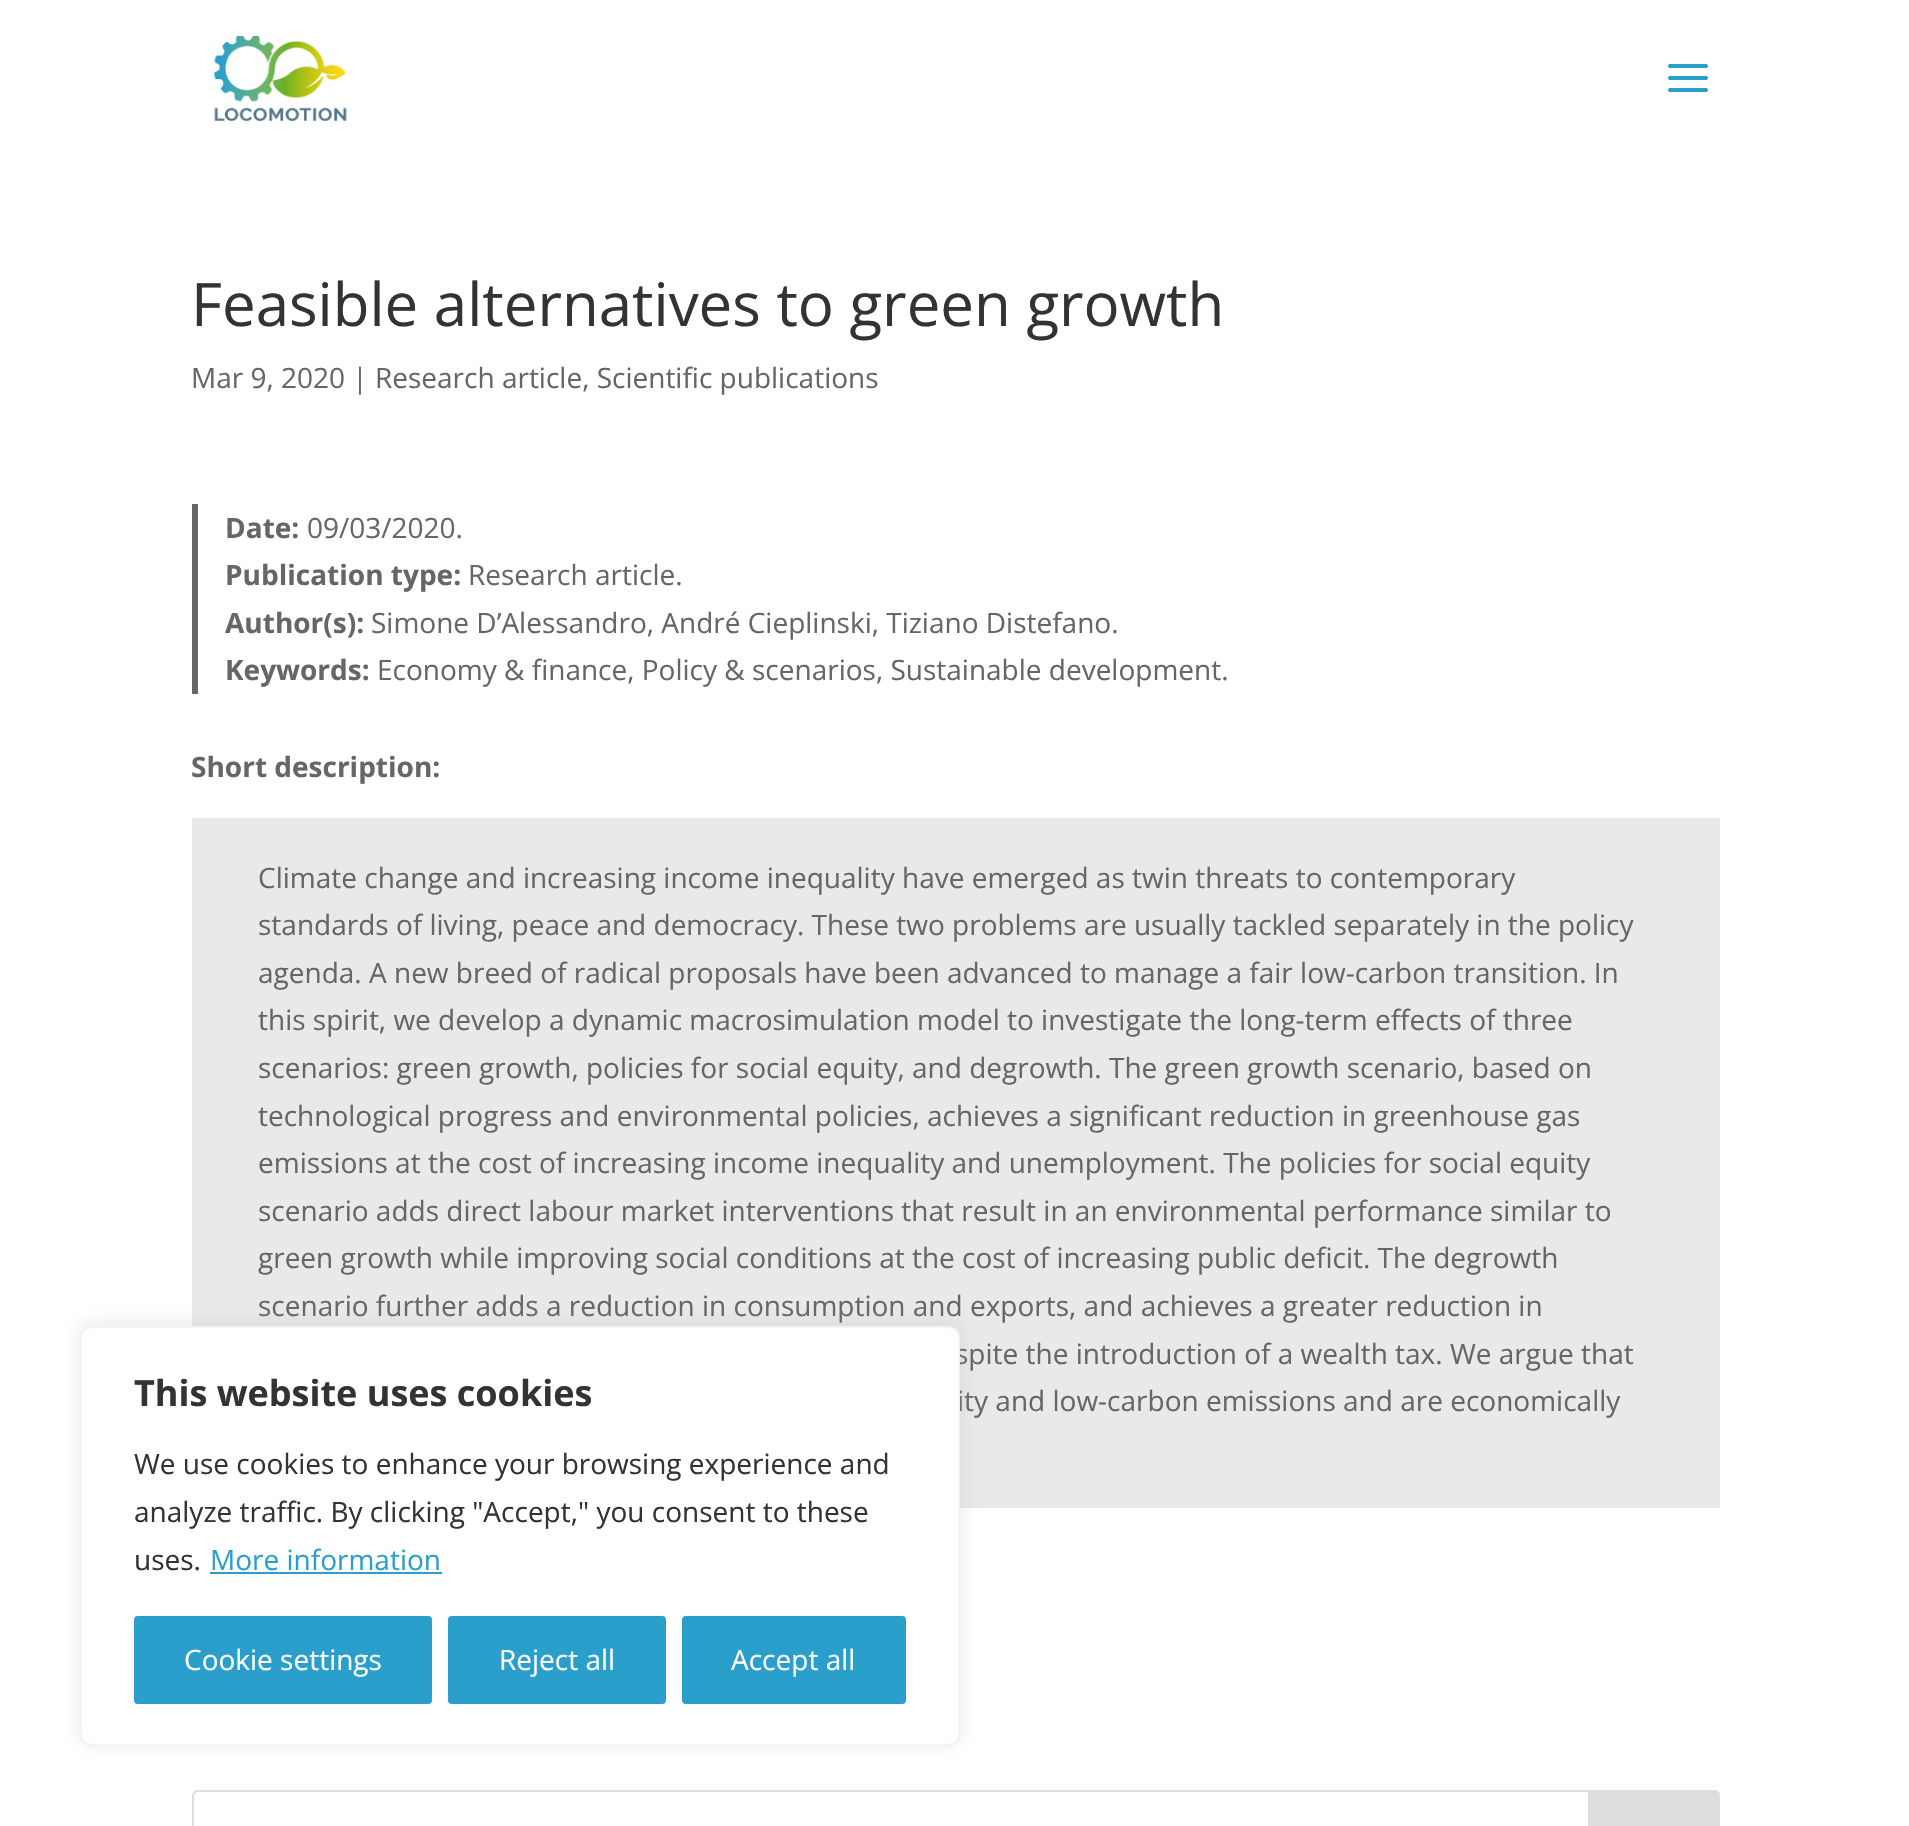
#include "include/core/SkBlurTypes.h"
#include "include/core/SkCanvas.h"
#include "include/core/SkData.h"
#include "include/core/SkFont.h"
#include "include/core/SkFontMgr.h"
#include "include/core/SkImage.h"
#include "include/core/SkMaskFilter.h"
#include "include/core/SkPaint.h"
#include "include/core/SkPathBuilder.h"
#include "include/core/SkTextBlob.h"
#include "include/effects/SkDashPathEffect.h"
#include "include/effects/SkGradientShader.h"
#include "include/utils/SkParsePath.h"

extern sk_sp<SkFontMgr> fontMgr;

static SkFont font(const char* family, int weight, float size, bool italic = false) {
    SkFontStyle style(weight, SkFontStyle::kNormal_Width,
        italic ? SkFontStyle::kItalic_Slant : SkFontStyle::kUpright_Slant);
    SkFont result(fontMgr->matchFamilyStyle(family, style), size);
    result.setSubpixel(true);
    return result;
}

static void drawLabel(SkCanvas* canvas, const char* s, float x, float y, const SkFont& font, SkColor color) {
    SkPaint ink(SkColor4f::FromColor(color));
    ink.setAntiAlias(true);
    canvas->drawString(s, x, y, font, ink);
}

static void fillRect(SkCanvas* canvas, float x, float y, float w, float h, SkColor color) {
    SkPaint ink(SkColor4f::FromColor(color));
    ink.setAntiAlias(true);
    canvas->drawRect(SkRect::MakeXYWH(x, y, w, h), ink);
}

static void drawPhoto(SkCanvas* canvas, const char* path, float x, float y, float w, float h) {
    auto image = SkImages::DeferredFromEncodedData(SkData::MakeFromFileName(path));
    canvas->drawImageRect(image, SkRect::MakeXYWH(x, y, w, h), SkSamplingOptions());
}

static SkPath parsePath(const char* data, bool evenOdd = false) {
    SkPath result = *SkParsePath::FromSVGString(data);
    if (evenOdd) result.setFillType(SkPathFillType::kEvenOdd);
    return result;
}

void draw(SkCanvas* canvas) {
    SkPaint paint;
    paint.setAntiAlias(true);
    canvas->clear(0xFFFFFFFF);
    drawPhoto(canvas, "assets/img1.png", 213, 36, 134, 86);
    drawPhoto(canvas, "assets/img2.png", 1668, 64, 40, 28);
    SkFont font1 = font("Open Sans", 400, 60);
    drawLabel(canvas, "Feasible alternatives to green growth", 191, 326, font1, 0xFF333333);
    SkFont font2 = font("Open Sans", 400, 28);
    drawLabel(canvas, "Mar 9, 2020 | Research article, Scientific publications", 191, 388, font2, 0xFF666666);
    fillRect(canvas, 192, 504, 6, 190, 0xFF666666);
    SkFont font3 = font("Open Sans", 700, 28);
    drawLabel(canvas, "Date:", 225, 538, font3, 0xFF666666);
    drawLabel(canvas, "09/03/2020.", 307, 538, font2, 0xFF666666);
    drawLabel(canvas, "Publication type:", 225, 585, font3, 0xFF666666);
    drawLabel(canvas, "Research article.", 468, 585, font2, 0xFF666666);
    drawLabel(canvas, "Author(s):", 225, 633, font3, 0xFF666666);
    drawLabel(canvas, "Simone D’Alessandro, André Cieplinski, Tiziano Distefano.", 371, 633, font2, 0xFF666666);
    drawLabel(canvas, "Keywords:", 225, 680, font3, 0xFF666666);
    drawLabel(canvas, "Economy & finance, Policy & scenarios, Sustainable development.", 377, 680, font2, 0xFF666666);
    drawLabel(canvas, "Short description:", 191, 777, font3, 0xFF666666);
    fillRect(canvas, 192, 818, 1528, 690, 0xFFE9E9E9);
    drawLabel(canvas, "Climate change and increasing income inequality have emerged as twin threats to contemporary", 258, 888, font2, 0xFF666666);
    drawLabel(canvas, "standards of living, peace and democracy. These two problems are usually tackled separately in the policy", 258, 935, font2, 0xFF666666);
    drawLabel(canvas, "agenda. A new breed of radical proposals have been advanced to manage a fair low-carbon transition. In", 258, 983, font2, 0xFF666666);
    drawLabel(canvas, "this spirit, we develop a dynamic macrosimulation model to investigate the long-term effects of three", 258, 1030, font2, 0xFF666666);
    drawLabel(canvas, "scenarios: green growth, policies for social equity, and degrowth. The green growth scenario, based on", 258, 1078, font2, 0xFF666666);
    drawLabel(canvas, "technological progress and environmental policies, achieves a significant reduction in greenhouse gas", 258, 1126, font2, 0xFF666666);
    drawLabel(canvas, "emissions at the cost of increasing income inequality and unemployment. The policies for social equity", 258, 1173, font2, 0xFF666666);
    drawLabel(canvas, "scenario adds direct labour market interventions that result in an environmental performance similar to", 258, 1221, font2, 0xFF666666);
    drawLabel(canvas, "green growth while improving social conditions at the cost of increasing public deficit. The degrowth", 258, 1268, font2, 0xFF666666);
    drawLabel(canvas, "scenario further adds a reduction in consumption and exports, and achieves a greater reduction in", 258, 1316, font2, 0xFF666666);
    drawLabel(canvas, "spite the introduction of a wealth tax. We argue that", 955, 1364, font2, 0xFF666666);
    drawLabel(canvas, "ity and low-carbon emissions and are economically", 957, 1411, font2, 0xFF666666);
    paint.setStroke(true);
    paint.setStrokeWidth(2);
    paint.setColor(0xFFDDDDDD);
    canvas->drawRoundRect(SkRect::MakeXYWH(193, 1791, 1526, 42), 5, 5, paint);
    paint.setStroke(false);
    canvas->drawPath(parsePath("M1589 1791H1714C1717 1791 1719 1793 1719 1796V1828C1719 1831 1717 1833 1714 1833H1589Z"), paint);
    paint.setStroke(true);
    canvas->drawPath(parsePath("M1589 1791H1714C1717 1791 1719 1793 1719 1796V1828C1719 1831 1717 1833 1714 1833H1589Z"), paint);
    paint.setStroke(false);
    paint.setColor(0x4DACABAB);
    paint.setMaskFilter(SkMaskFilter::MakeBlur(kNormal_SkBlurStyle, 10));
    canvas->drawRoundRect(SkRect::MakeXYWH(80, 1324, 880, 420), 12, 12, paint);
    paint.setMaskFilter(nullptr);
    paint.setColor(0xFFFFFFFF);
    canvas->drawRoundRect(SkRect::MakeXYWH(81, 1327, 878, 418), 11, 11, paint);
    paint.setStroke(true);
    paint.setColor(0xFFF4F4F4);
    canvas->drawRoundRect(SkRect::MakeXYWH(81, 1327, 878, 418), 11, 11, paint);
    SkFont font4 = font("Open Sans", 700, 36);
    drawLabel(canvas, "This website uses cookies", 134, 1406, font4, 0xFF333333);
    drawLabel(canvas, "We use cookies to enhance your browsing experience and", 134, 1474, font2, 0xFF333333);
    drawLabel(canvas, "analyze traffic. By clicking \"Accept,\" you consent to these", 134, 1522, font2, 0xFF333333);
    drawLabel(canvas, "uses.", 134, 1570, font2, 0xFF333333);
    drawLabel(canvas, "More information", 210, 1570, font2, 0xFF2B9FCC);
    fillRect(canvas, 210, 1572, 232, 2, 0xFF2B9FCC);
    paint.setStroke(false);
    paint.setColor(0xFF2B9FCC);
    canvas->drawRoundRect(SkRect::MakeXYWH(136, 1618, 294, 84), 2, 2, paint);
    paint.setStroke(true);
    paint.setStrokeWidth(4);
    canvas->drawRoundRect(SkRect::MakeXYWH(136, 1618, 294, 84), 2, 2, paint);
    drawLabel(canvas, "Cookie settings", 184, 1670, font2, 0xFFFFFFFF);
    paint.setStroke(false);
    canvas->drawRoundRect(SkRect::MakeXYWH(450, 1618, 214, 84), 2, 2, paint);
    paint.setStroke(true);
    canvas->drawRoundRect(SkRect::MakeXYWH(450, 1618, 214, 84), 2, 2, paint);
    drawLabel(canvas, "Reject all", 499, 1670, font2, 0xFFFFFFFF);
    paint.setStroke(false);
    canvas->drawRoundRect(SkRect::MakeXYWH(684, 1618, 220, 84), 2, 2, paint);
    paint.setStroke(true);
    canvas->drawRoundRect(SkRect::MakeXYWH(684, 1618, 220, 84), 2, 2, paint);
    drawLabel(canvas, "Accept all", 731, 1670, font2, 0xFFFFFFFF);
}
